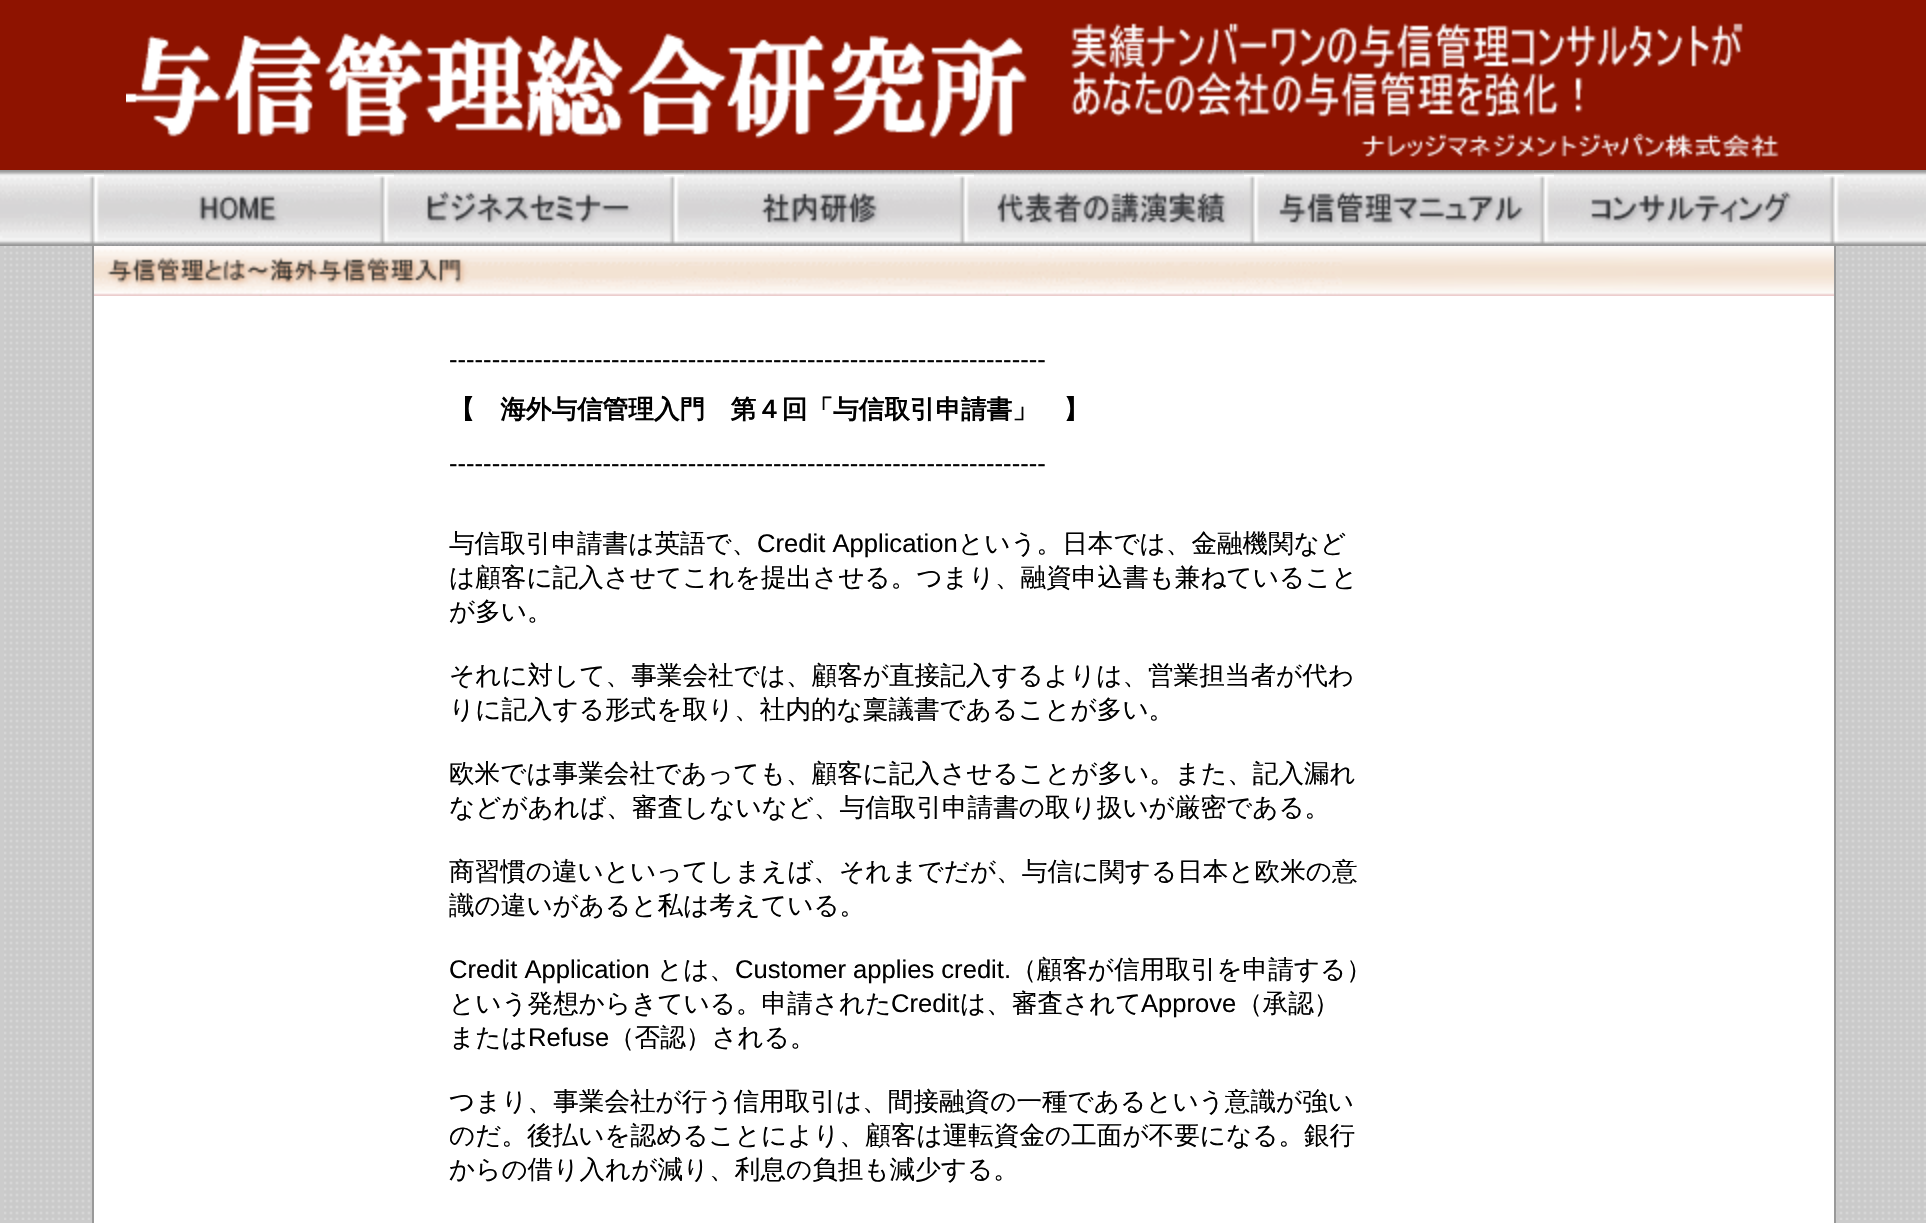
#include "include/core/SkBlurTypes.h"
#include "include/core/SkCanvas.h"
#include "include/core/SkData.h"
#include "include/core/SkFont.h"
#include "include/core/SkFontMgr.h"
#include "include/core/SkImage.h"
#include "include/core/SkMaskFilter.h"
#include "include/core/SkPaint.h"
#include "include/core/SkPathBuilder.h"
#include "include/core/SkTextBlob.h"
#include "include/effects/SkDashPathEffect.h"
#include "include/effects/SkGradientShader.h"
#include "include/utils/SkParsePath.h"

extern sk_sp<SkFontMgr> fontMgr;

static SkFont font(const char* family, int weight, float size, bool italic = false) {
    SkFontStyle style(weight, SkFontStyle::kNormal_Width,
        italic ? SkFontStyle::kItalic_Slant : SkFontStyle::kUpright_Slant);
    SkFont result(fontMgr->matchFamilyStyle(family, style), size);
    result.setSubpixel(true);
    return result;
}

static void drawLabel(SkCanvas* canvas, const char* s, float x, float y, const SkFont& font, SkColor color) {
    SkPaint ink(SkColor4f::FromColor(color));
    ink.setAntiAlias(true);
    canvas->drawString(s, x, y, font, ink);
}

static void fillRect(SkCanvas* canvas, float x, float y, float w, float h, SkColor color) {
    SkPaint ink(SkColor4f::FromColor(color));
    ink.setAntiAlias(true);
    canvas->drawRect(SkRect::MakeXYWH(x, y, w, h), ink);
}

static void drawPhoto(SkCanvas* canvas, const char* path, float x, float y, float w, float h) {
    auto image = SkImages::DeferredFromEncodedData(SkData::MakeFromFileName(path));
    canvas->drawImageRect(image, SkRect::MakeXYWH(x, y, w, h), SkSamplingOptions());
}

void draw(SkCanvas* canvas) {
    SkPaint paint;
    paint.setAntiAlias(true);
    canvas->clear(0xFFCCCCCC);
    drawPhoto(canvas, "assets/img1.png", 4, 246, 1922, 974);
    fillRect(canvas, 0, 0, 1926, 170, 0xFF8E1300);
    drawPhoto(canvas, "assets/img2.png", 126, 33, 901, 106);
    drawPhoto(canvas, "assets/img3.png", 1071, 23, 708, 136);
    drawPhoto(canvas, "assets/img4.png", 0, 170, 1926, 76);
    drawPhoto(canvas, "assets/img5.png", 84, 171, 20, 74);
    drawPhoto(canvas, "assets/img6.png", 104, 170, 270, 76);
    drawPhoto(canvas, "assets/img7.png", 374, 171, 20, 74);
    drawPhoto(canvas, "assets/img8.png", 394, 170, 270, 76);
    drawPhoto(canvas, "assets/img5.png", 664, 171, 20, 74);
    drawPhoto(canvas, "assets/img9.png", 684, 170, 270, 76);
    drawPhoto(canvas, "assets/img7.png", 954, 171, 20, 74);
    drawPhoto(canvas, "assets/img10.png", 974, 170, 270, 76);
    drawPhoto(canvas, "assets/img7.png", 1244, 171, 20, 74);
    drawPhoto(canvas, "assets/img11.png", 1264, 170, 270, 76);
    drawPhoto(canvas, "assets/img7.png", 1534, 171, 20, 74);
    drawPhoto(canvas, "assets/img12.png", 1554, 170, 270, 76);
    drawPhoto(canvas, "assets/img7.png", 1824, 171, 20, 74);
    fillRect(canvas, 94, 296, 1740, 927, 0xFFFFFFFF);
    fillRect(canvas, 92, 246, 2, 977, 0xFF999999);
    drawPhoto(canvas, "assets/img13.png", 94, 246, 1248, 50);
    drawPhoto(canvas, "assets/img14.png", 1342, 246, 492, 50);
    SkFont font1 = font("Liberation Sans", 400, 25.6f);
    drawLabel(canvas, "----------------------------------------------------------------------", 449, 368, font1, 0xFF000000);
    SkFont font2 = font("WenQuanYi Zen Hei", 700, 25.6f);
    drawLabel(canvas, "【　海外与信管理入門　第４回「与信取引申請書」　】", 449, 418, font2, 0xFF000000);
    drawLabel(canvas, "----------------------------------------------------------------------", 449, 472, font1, 0xFF000000);
    SkFont font3 = font("WenQuanYi Zen Hei", 500, 25.6f);
    drawLabel(canvas, "与信取引申請書は英語で、", 449, 552, font3, 0xFF000000);
    drawLabel(canvas, "Credit Application", 757, 552, font1, 0xFF000000);
    drawLabel(canvas, "という。日本では、金融機関など", 958, 552, font3, 0xFF000000);
    drawLabel(canvas, "は顧客に記入させてこれを提出させる。つまり、融資申込書も兼ねていること", 449, 586, font3, 0xFF000000);
    drawLabel(canvas, "が多い。", 449, 620, font3, 0xFF000000);
    drawLabel(canvas, "それに対して、事業会社では、顧客が直接記入するよりは、営業担当者が代わ", 449, 684, font3, 0xFF000000);
    drawLabel(canvas, "りに記入する形式を取り、社内的な稟議書であることが多い。", 449, 718, font3, 0xFF000000);
    drawLabel(canvas, "欧米では事業会社であっても、顧客に記入させることが多い。また、記入漏れ", 449, 782, font3, 0xFF000000);
    drawLabel(canvas, "などがあれば、審査しないなど、与信取引申請書の取り扱いが厳密である。", 449, 816, font3, 0xFF000000);
    drawLabel(canvas, "商習慣の違いといってしまえば、それまでだが、与信に関する日本と欧米の意", 449, 880, font3, 0xFF000000);
    drawLabel(canvas, "識の違いがあると私は考えている。", 449, 914, font3, 0xFF000000);
    drawLabel(canvas, "Credit Application", 449, 978, font1, 0xFF000000);
    drawLabel(canvas, "とは、", 657, 978, font3, 0xFF000000);
    drawLabel(canvas, "Customer applies credit.", 735, 978, font1, 0xFF000000);
    drawLabel(canvas, "（顧客が信用取引を申請する）", 1011, 978, font3, 0xFF000000);
    drawLabel(canvas, "という発想からきている。申請された", 449, 1012, font3, 0xFF000000);
    drawLabel(canvas, "Credit", 891, 1012, font1, 0xFF000000);
    drawLabel(canvas, "は、審査されて", 960, 1012, font3, 0xFF000000);
    drawLabel(canvas, "Approve", 1141, 1012, font1, 0xFF000000);
    drawLabel(canvas, "（承認）", 1237, 1012, font3, 0xFF000000);
    drawLabel(canvas, "または", 449, 1046, font3, 0xFF000000);
    drawLabel(canvas, "Refuse", 528, 1046, font1, 0xFF000000);
    drawLabel(canvas, "（否認）される。", 609, 1046, font3, 0xFF000000);
    drawLabel(canvas, "つまり、事業会社が行う信用取引は、間接融資の一種であるという意識が強い", 449, 1110, font3, 0xFF000000);
    drawLabel(canvas, "のだ。後払いを認めることにより、顧客は運転資金の工面が不要になる。銀行", 449, 1144, font3, 0xFF000000);
    drawLabel(canvas, "からの借り入れが減り、利息の負担も減少する。", 449, 1178, font3, 0xFF000000);
    fillRect(canvas, 1834, 246, 2, 977, 0xFF999999);
}
